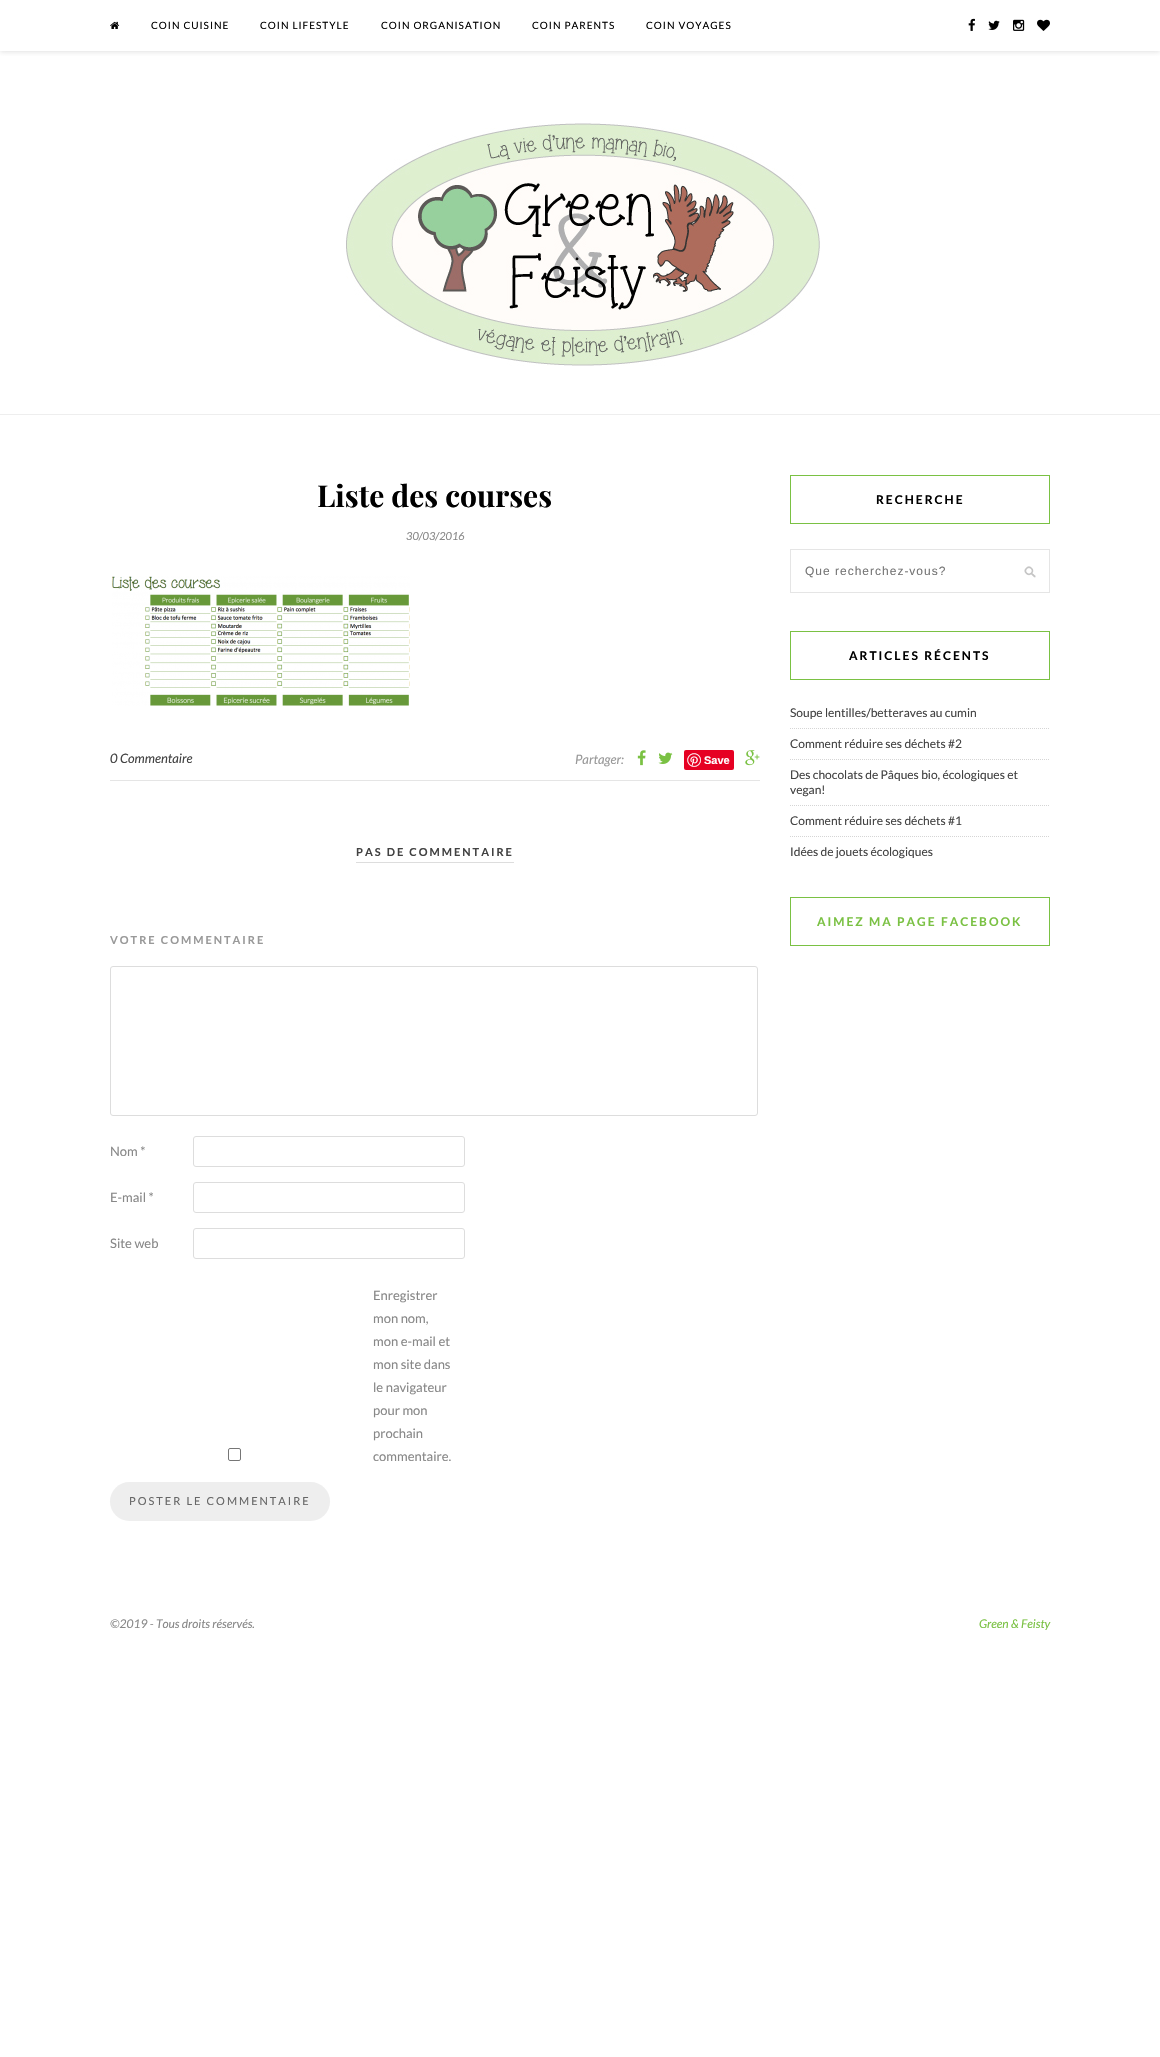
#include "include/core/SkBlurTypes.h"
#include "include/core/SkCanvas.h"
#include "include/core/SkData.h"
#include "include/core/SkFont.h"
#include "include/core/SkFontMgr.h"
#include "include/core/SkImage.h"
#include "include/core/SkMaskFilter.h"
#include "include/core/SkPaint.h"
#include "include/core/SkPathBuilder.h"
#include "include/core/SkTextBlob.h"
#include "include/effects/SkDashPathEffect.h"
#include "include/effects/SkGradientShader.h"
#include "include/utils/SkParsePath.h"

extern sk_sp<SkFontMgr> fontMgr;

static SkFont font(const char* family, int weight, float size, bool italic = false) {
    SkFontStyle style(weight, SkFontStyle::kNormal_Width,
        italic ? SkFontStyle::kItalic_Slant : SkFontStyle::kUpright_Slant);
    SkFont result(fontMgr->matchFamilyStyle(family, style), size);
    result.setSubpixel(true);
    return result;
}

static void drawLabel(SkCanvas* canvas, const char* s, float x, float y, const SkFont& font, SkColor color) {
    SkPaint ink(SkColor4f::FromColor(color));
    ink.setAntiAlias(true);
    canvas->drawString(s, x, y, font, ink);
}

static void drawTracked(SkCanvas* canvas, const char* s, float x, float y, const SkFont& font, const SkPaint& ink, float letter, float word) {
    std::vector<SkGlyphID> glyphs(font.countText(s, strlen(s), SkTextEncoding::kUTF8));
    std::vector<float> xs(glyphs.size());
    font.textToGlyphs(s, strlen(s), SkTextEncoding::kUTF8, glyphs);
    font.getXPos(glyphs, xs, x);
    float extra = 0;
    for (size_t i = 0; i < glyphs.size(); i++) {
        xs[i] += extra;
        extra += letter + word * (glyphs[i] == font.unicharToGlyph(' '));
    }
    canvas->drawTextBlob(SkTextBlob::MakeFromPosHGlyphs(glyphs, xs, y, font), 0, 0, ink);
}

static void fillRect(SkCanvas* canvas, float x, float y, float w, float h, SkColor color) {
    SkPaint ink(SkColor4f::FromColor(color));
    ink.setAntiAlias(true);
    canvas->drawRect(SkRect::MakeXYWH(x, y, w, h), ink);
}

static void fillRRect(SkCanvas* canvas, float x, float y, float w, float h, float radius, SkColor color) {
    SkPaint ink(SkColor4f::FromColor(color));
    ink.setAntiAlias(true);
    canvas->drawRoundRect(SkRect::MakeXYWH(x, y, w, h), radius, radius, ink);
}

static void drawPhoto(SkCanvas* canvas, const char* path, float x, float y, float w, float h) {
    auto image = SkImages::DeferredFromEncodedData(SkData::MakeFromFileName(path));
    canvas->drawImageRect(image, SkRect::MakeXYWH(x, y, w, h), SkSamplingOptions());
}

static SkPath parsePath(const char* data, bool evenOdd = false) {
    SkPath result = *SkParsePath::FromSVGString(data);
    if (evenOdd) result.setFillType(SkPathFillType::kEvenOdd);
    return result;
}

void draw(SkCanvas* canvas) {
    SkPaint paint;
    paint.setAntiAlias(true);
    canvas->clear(0xFFFFFFFF);
    canvas->save();
    canvas->clipRect(SkRect::MakeXYWH(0, 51, 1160, 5));
    paint.setColor(0x75BEBEBE);
    paint.setMaskFilter(SkMaskFilter::MakeBlur(kNormal_SkBlurStyle, 2.5f));
    canvas->drawRect(SkRect::MakeXYWH(0, 1, 1160, 51), paint);
    paint.setMaskFilter(nullptr);
    canvas->restore();
    drawPhoto(canvas, "assets/img1.png", 110, 21, 10, 8);
    SkFont font1 = font("Lato", 400, 10);
    paint.setColor(0xFF000000);
    drawTracked(canvas, "COIN CUISINE", 151, 29, font1, paint, 1, 0);
    drawTracked(canvas, "COIN LIFESTYLE", 260, 29, font1, paint, 1, 0);
    drawTracked(canvas, "COIN ORGANISATION", 381, 29, font1, paint, 1, 0);
    drawTracked(canvas, "COIN PARENTS", 532, 29, font1, paint, 1, 0);
    drawTracked(canvas, "COIN VOYAGES", 646, 29, font1, paint, 1, 0);
    drawPhoto(canvas, "assets/img2.png", 968, 18, 7, 13);
    drawPhoto(canvas, "assets/img3.png", 988, 20, 12, 10);
    drawPhoto(canvas, "assets/img4.png", 1013, 19, 12, 12);
    drawPhoto(canvas, "assets/img5.png", 1037, 19, 13, 12);
    fillRect(canvas, 0, 414, 1160, 1, 0xFFEEEEEE);
    drawPhoto(canvas, "assets/img6.png", 346, 123, 474, 243);
    SkFont font2 = font("Playfair Display", 700, 30);
    drawLabel(canvas, "Liste des courses", 317, 507, font2, 0xFF000000);
    SkFont font3 = font("Lato", 400, 11, true);
    drawLabel(canvas, "30/03/2016", 406, 540, font3, 0xFF888888);
    drawPhoto(canvas, "assets/img7.png", 112, 576, 298, 130);
    fillRect(canvas, 110, 780, 650, 1, 0xFFE5E5E5);
    SkFont font4 = font("Lato", 400, 13, true);
    drawLabel(canvas, "0 Commentaire", 110, 763, font4, 0xFF424242);
    drawLabel(canvas, "Partager:", 575, 764, font4, 0xFF999999);
    drawPhoto(canvas, "assets/img8.png", 637, 750, 9, 16);
    drawPhoto(canvas, "assets/img9.png", 658, 752, 15, 12);
    fillRRect(canvas, 684, 750, 50, 20, 2, 0xFFE60023);
    drawPhoto(canvas, "assets/img10.png", 687, 753, 14, 14);
    SkFont font5 = font("Liberation Sans", 700, 11);
    drawLabel(canvas, "Save", 704, 764, font5, 0xFFFFFFFF);
    drawPhoto(canvas, "assets/img11.png", 745, 750, 15, 16);
    fillRect(canvas, 356, 862, 158, 1, 0xFFDDDDDD);
    SkFont font6 = font("Lato", 700, 11);
    paint.setColor(0xFF424242);
    drawTracked(canvas, "PAS DE COMMENTAIRE", 356, 856, font6, paint, 2, 0);
    paint.setColor(0xFF999999);
    drawTracked(canvas, "VOTRE COMMENTAIRE", 110, 944, font6, paint, 2, 0);
    paint.setStroke(true);
    paint.setStrokeWidth(1);
    paint.setColor(0xFFDDDDDD);
    canvas->drawRoundRect(SkRect::MakeXYWH(110.5f, 966.5f, 647, 149), 2.5f, 2.5f, paint);
    SkFont font7 = font("Lato", 400, 13);
    drawLabel(canvas, "Nom *", 110, 1156, font7, 0xFF888888);
    canvas->drawRoundRect(SkRect::MakeXYWH(193.5f, 1136.5f, 271, 30), 2.5f, 2.5f, paint);
    drawLabel(canvas, "E-mail *", 110, 1202, font7, 0xFF888888);
    canvas->drawRoundRect(SkRect::MakeXYWH(193.5f, 1182.5f, 271, 30), 2.5f, 2.5f, paint);
    drawLabel(canvas, "Site web", 110, 1248, font7, 0xFF888888);
    canvas->drawRoundRect(SkRect::MakeXYWH(193.5f, 1228.5f, 271, 30), 2.5f, 2.5f, paint);
    paint.setColor(0xFF767676);
    canvas->drawRoundRect(SkRect::MakeXYWH(228.5f, 1448.5f, 12, 12), 1.5f, 1.5f, paint);
    drawLabel(canvas, "Enregistrer", 373, 1300, font7, 0xFF888888);
    drawLabel(canvas, "mon nom,", 373, 1323, font7, 0xFF888888);
    drawLabel(canvas, "mon e-mail et", 373, 1346, font7, 0xFF888888);
    drawLabel(canvas, "mon site dans", 373, 1369, font7, 0xFF888888);
    drawLabel(canvas, "le navigateur", 373, 1392, font7, 0xFF888888);
    drawLabel(canvas, "pour mon", 373, 1415, font7, 0xFF888888);
    drawLabel(canvas, "prochain", 373, 1438, font7, 0xFF888888);
    drawLabel(canvas, "commentaire.", 373, 1461, font7, 0xFF888888);
    fillRRect(canvas, 110, 1482, 220, 39, 19.5f, 0xFFEEEEEE);
    SkFont font8 = font("Lato", 400, 11);
    paint.setStroke(false);
    paint.setColor(0xFF666666);
    drawTracked(canvas, "POSTER LE COMMENTAIRE", 129, 1505, font8, paint, 2, 0);
    paint.setStroke(true);
    paint.setColor(0xFF7AC143);
    canvas->drawRect(SkRect::MakeXYWH(790.5f, 475.5f, 259, 48), paint);
    SkFont font9 = font("Lato", 700, 12);
    paint.setStroke(false);
    paint.setColor(0xFF000000);
    drawTracked(canvas, "RECHERCHE", 876, 504, font9, paint, 2, 0);
    drawPhoto(canvas, "assets/img12.png", 1024, 566, 12, 12);
    paint.setStroke(true);
    paint.setColor(0xFFE5E5E5);
    canvas->drawRect(SkRect::MakeXYWH(790.5f, 549.5f, 259, 43), paint);
    SkFont font10 = font("Liberation Sans", 400, 12);
    paint.setStroke(false);
    paint.setColor(0xFF757575);
    drawTracked(canvas, "Que recherchez-vous?", 805, 575, font10, paint, 1, 0);
    paint.setStroke(true);
    paint.setColor(0xFF7AC143);
    canvas->drawRect(SkRect::MakeXYWH(790.5f, 631.5f, 259, 48), paint);
    paint.setStroke(false);
    paint.setColor(0xFF000000);
    drawTracked(canvas, "ARTICLES RÉCENTS", 849, 660, font9, paint, 2, 0);
    paint.setStroke(true);
    paint.setColor(0xFFD5D5D5);
    paint.setPathEffect(SkDashPathEffect::Make({{1, 1}}, 0));
    canvas->drawPath(parsePath("M790 728.5H1050"), paint);
    paint.setPathEffect(nullptr);
    SkFont font11 = font("Lato", 400, 12);
    drawLabel(canvas, "Soupe lentilles/betteraves au cumin", 790, 717, font11, 0xFF424242);
    paint.setPathEffect(SkDashPathEffect::Make({{1, 1}}, 0));
    canvas->drawPath(parsePath("M790 759.5H1050"), paint);
    paint.setPathEffect(nullptr);
    drawLabel(canvas, "Comment réduire ses déchets #2", 790, 748, font11, 0xFF424242);
    paint.setPathEffect(SkDashPathEffect::Make({{1, 1}}, 0));
    canvas->drawPath(parsePath("M790 805.5H1050"), paint);
    paint.setPathEffect(nullptr);
    drawLabel(canvas, "Des chocolats de Pâques bio, écologiques et", 790, 779, font11, 0xFF424242);
    drawLabel(canvas, "vegan!", 790, 794, font11, 0xFF424242);
    paint.setPathEffect(SkDashPathEffect::Make({{1, 1}}, 0));
    canvas->drawPath(parsePath("M790 836.5H1050"), paint);
    paint.setPathEffect(nullptr);
    drawLabel(canvas, "Comment réduire ses déchets #1", 790, 825, font11, 0xFF424242);
    drawLabel(canvas, "Idées de jouets écologiques", 790, 856, font11, 0xFF424242);
    paint.setColor(0xFF7AC143);
    canvas->drawRect(SkRect::MakeXYWH(790.5f, 897.5f, 259, 48), paint);
    paint.setStroke(false);
    drawTracked(canvas, "AIMEZ MA PAGE FACEBOOK", 817, 926, font9, paint, 2, 0);
    SkFont font12 = font("Lato", 400, 12, true);
    drawLabel(canvas, "©2019 - Tous droits réservés.", 110, 1628, font12, 0xFF888888);
    drawLabel(canvas, "Green & Feisty", 979, 1628, font12, 0xFF7AC143);
}
